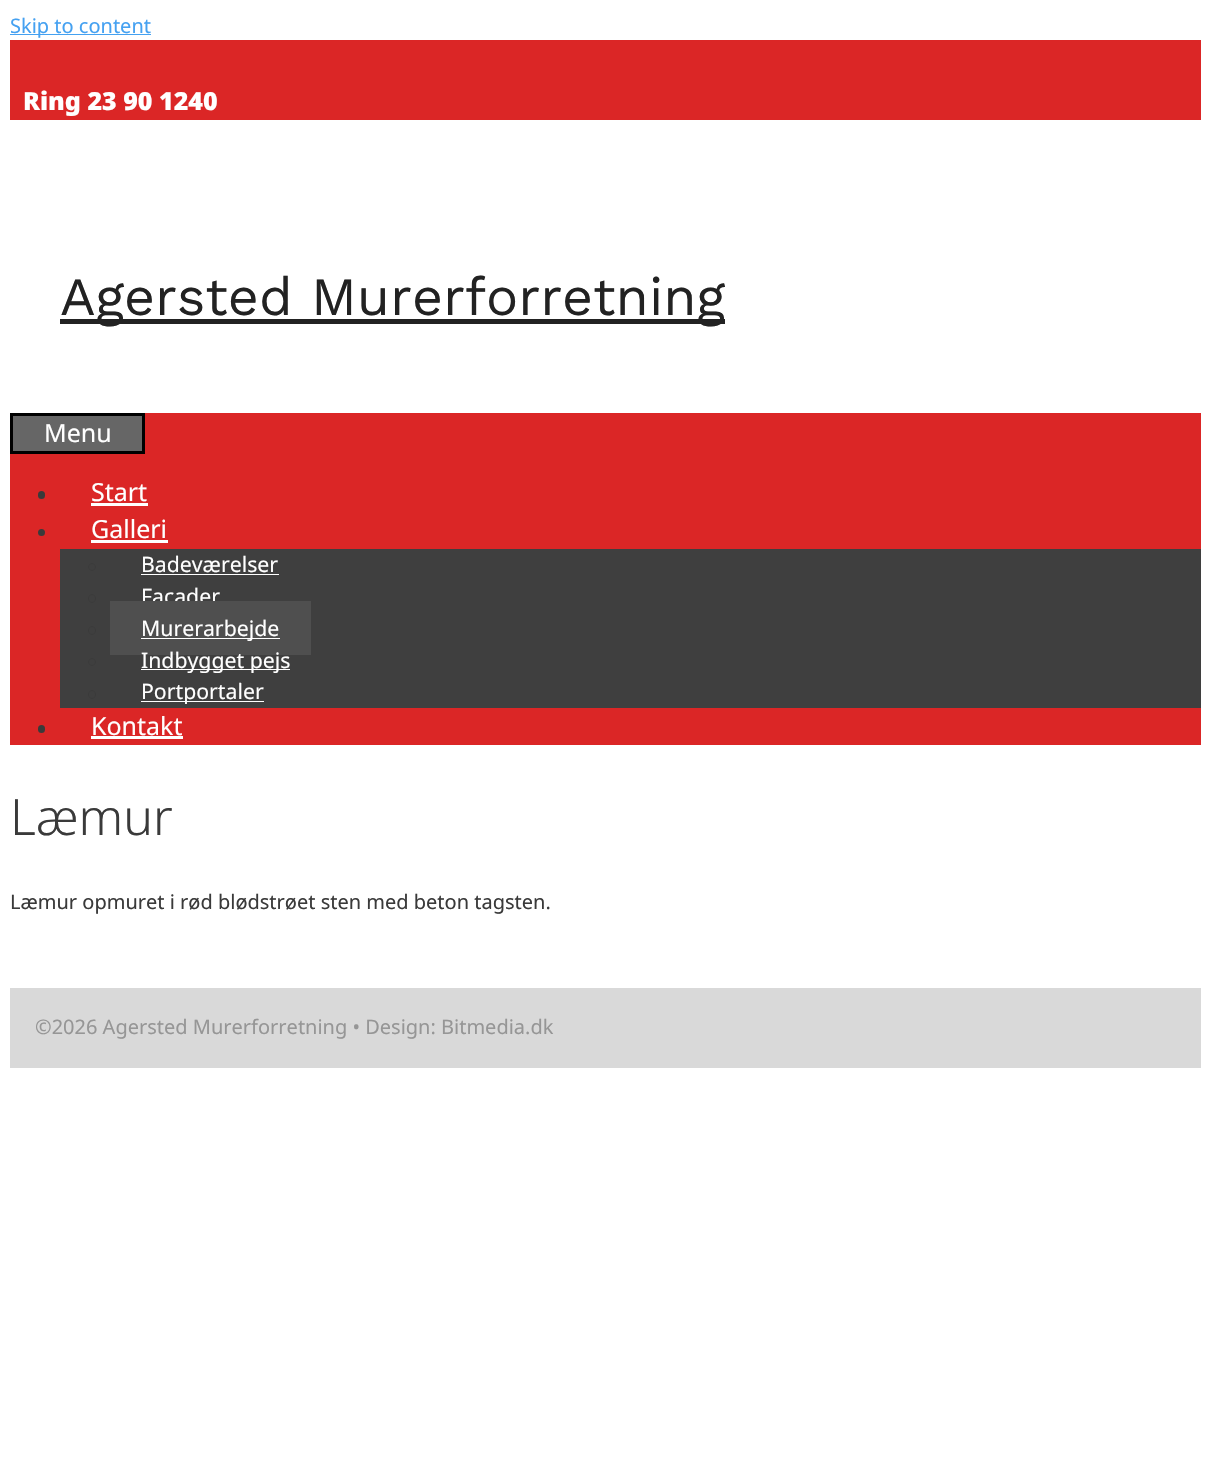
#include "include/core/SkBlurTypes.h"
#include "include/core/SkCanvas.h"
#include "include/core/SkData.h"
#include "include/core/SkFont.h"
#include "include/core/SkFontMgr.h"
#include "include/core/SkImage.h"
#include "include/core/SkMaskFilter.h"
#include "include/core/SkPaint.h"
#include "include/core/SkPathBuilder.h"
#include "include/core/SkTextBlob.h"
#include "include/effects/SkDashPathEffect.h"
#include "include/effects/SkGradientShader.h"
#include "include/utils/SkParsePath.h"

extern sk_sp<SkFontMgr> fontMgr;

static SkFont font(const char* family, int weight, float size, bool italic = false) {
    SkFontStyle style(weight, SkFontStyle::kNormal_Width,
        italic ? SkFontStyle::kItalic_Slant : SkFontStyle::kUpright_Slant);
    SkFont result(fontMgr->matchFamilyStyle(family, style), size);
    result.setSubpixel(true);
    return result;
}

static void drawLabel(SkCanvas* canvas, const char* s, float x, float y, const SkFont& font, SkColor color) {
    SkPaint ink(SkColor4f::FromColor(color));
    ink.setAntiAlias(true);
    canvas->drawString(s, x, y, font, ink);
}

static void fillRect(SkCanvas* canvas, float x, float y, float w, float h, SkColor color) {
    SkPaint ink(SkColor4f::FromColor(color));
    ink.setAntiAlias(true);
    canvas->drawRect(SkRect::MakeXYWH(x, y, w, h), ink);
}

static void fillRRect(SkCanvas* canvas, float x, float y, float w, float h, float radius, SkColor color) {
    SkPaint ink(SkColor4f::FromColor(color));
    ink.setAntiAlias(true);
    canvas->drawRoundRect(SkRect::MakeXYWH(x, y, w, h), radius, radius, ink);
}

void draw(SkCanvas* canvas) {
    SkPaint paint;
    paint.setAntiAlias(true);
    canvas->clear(0xFFFFFFFF);
    fillRect(canvas, 10, 34, 141, 1, 0xFF45A1F1);
    SkFont font1 = font("Noto Sans", 400, 20);
    drawLabel(canvas, "Skip to content", 10, 33, font1, 0xFF45A1F1);
    fillRect(canvas, 10, 40, 1191, 80, 0xFFDB2626);
    SkFont font2 = font("Noto Sans", 900, 25);
    drawLabel(canvas, "Ring 23 90 1240", 23, 110, font2, 0xFFFFFFFF);
    fillRect(canvas, 60, 319, 665, 5, 0xFF222222);
    SkFont font3 = font("Work Sans", 400, 53.75f);
    drawLabel(canvas, "Agersted Murerforretning", 60, 315, font3, 0xFF222222);
    fillRect(canvas, 10, 413, 1191, 332, 0xFFDB2626);
    paint.setColor(0xFF666666);
    canvas->drawRect(SkRect::MakeXYWH(11.5f, 414.5f, 132, 38), paint);
    paint.setStroke(true);
    paint.setStrokeWidth(3);
    paint.setColor(0xFF000000);
    canvas->drawRect(SkRect::MakeXYWH(11.5f, 414.5f, 132, 38), paint);
    SkFont font4 = font("Noto Sans", 400, 25);
    drawLabel(canvas, "Menu", 44, 442, font4, 0xFFFFFFFF);
    fillRRect(canvas, 38, 491, 7, 8, 3.5f, 0xFF3A3A3A);
    drawLabel(canvas, "Start", 91, 501, font4, 0xFFFFFFFF);
    fillRect(canvas, 91, 503, 57, 3, 0xFFFFFFFF);
    paint.setStroke(false);
    paint.setColor(0xFF3A3A3A);
    canvas->drawCircle(41.5f, 532.5f, 3.5f, paint);
    drawLabel(canvas, "Galleri", 91, 538, font4, 0xFFFFFFFF);
    fillRect(canvas, 91, 540, 77, 3, 0xFFFFFFFF);
    fillRect(canvas, 60, 549, 1141, 159, 0xFF3F3F3F);
    paint.setStroke(true);
    paint.setStrokeWidth(1);
    canvas->drawCircle(92, 567, 3.5f, paint);
    SkFont font5 = font("Noto Sans", 400, 21.25f);
    drawLabel(canvas, "Badeværelser", 141, 572, font5, 0xFFFFFFFF);
    fillRect(canvas, 141, 574, 138, 1, 0xFFFFFFFF);
    canvas->drawRoundRect(SkRect::MakeXYWH(88.5f, 594.5f, 7, 8), 3.5f, 3.5f, paint);
    drawLabel(canvas, "Facader", 141, 604, font5, 0xFFFFFFFF);
    canvas->drawRoundRect(SkRect::MakeXYWH(88.5f, 626.5f, 7, 8), 3.5f, 3.5f, paint);
    fillRect(canvas, 110, 601, 201, 54, 0xFF4F4F4F);
    fillRect(canvas, 141, 638, 139, 1, 0xFFFFFFFF);
    drawLabel(canvas, "Murerarbejde", 141, 636, font5, 0xFFFFFFFF);
    canvas->drawCircle(92, 662, 3.5f, paint);
    fillRect(canvas, 141, 669, 149, 1, 0xFFFFFFFF);
    drawLabel(canvas, "Indbygget pejs", 141, 668, font5, 0xFFFFFFFF);
    canvas->drawRoundRect(SkRect::MakeXYWH(88.5f, 690.5f, 7, 8), 3.5f, 3.5f, paint);
    fillRect(canvas, 141, 701, 123, 1, 0xFFFFFFFF);
    drawLabel(canvas, "Portportaler", 141, 699, font5, 0xFFFFFFFF);
    fillRRect(canvas, 38, 725, 7, 8, 3.5f, 0xFF3A3A3A);
    drawLabel(canvas, "Kontakt", 91, 735, font4, 0xFFFFFFFF);
    fillRect(canvas, 91, 736, 92, 3, 0xFFFFFFFF);
    SkFont font6 = font("Noto Sans", 300, 50);
    drawLabel(canvas, "Læmur", 10, 835, font6, 0xFF3A3A3A);
    drawLabel(canvas, "Læmur opmuret i rød blødstrøet sten med beton tagsten.", 10, 909, font1, 0xFF3A3A3A);
    fillRect(canvas, 10, 988, 1191, 80, 0xFFD9D9D9);
    drawLabel(canvas, "©2026 Agersted Murerforretning • Design: Bitmedia.dk", 35, 1034, font1, 0xFF969696);
}
